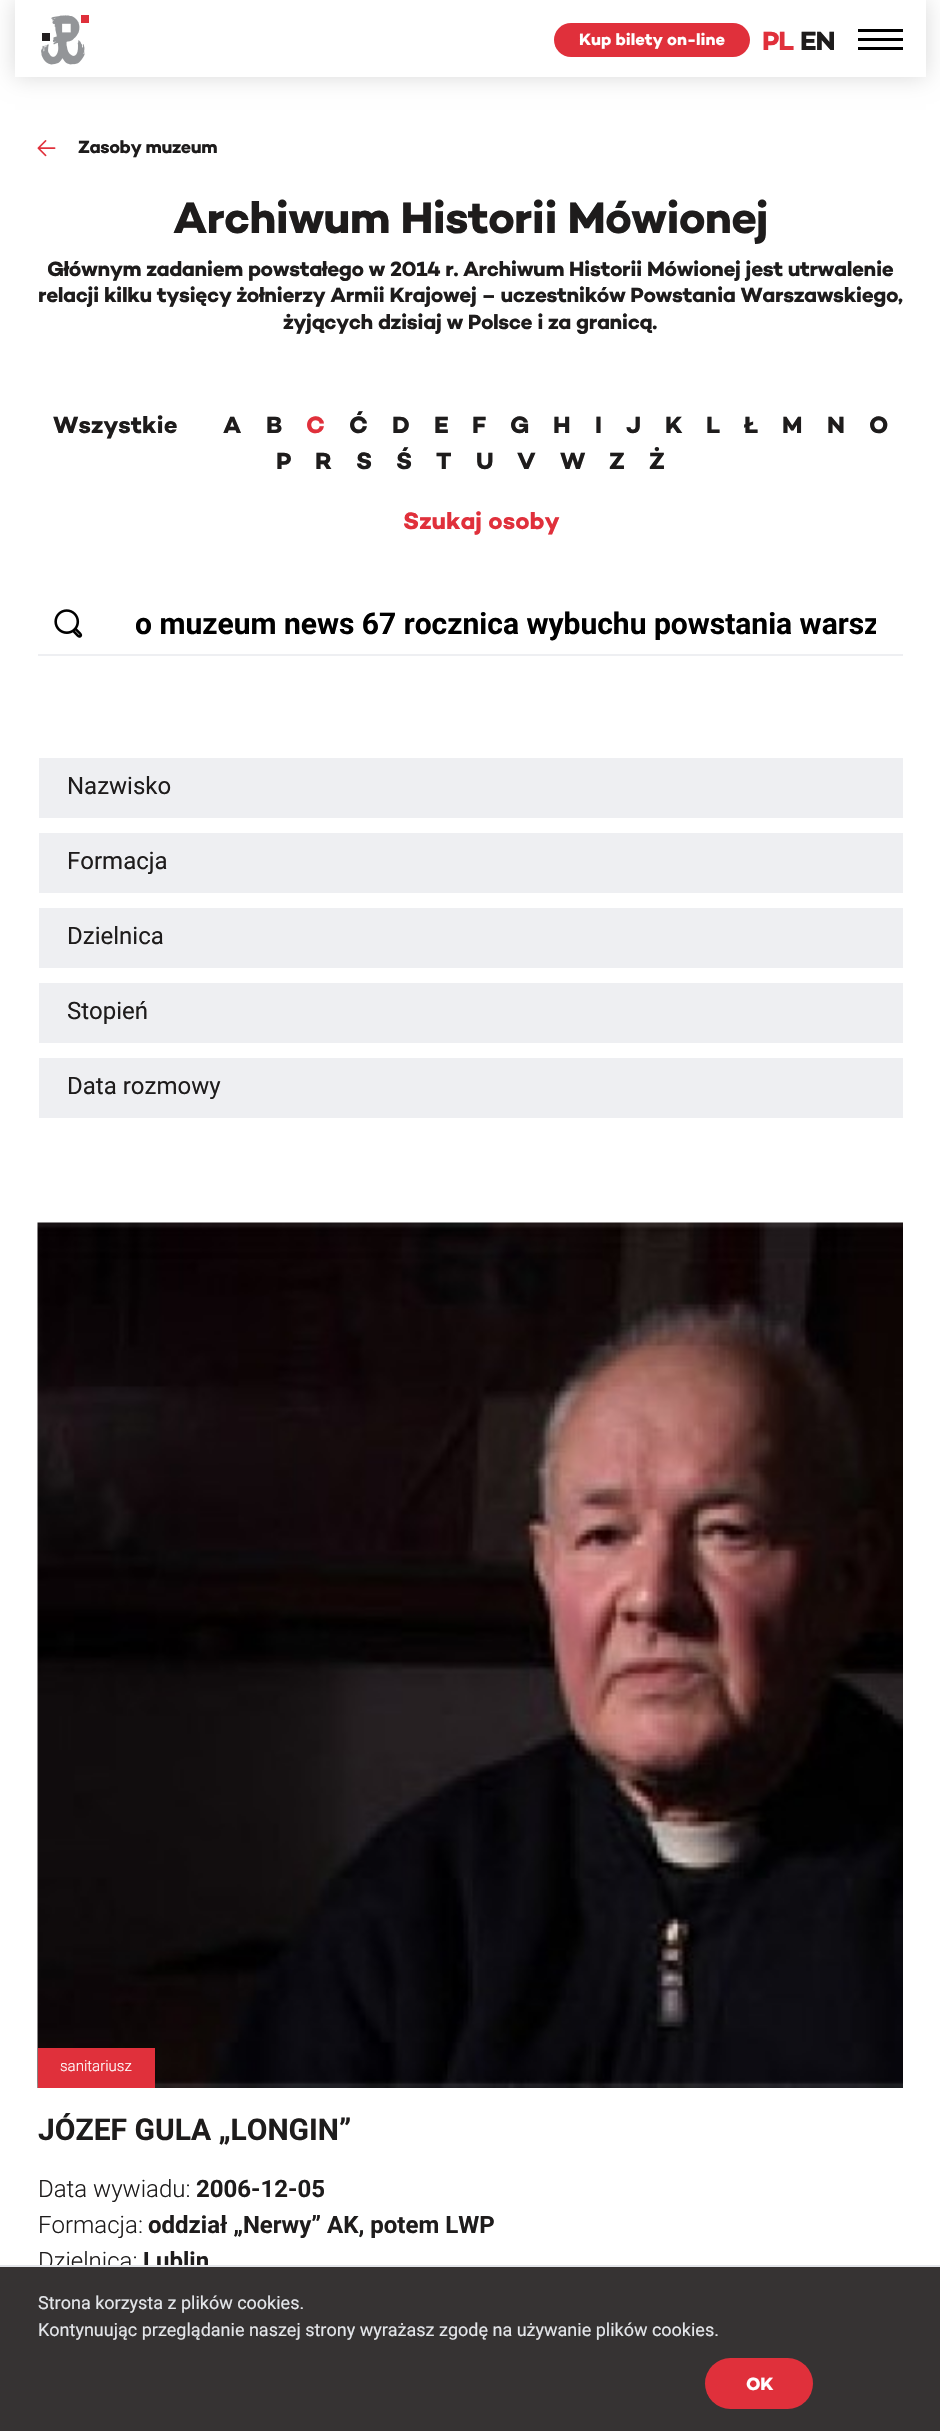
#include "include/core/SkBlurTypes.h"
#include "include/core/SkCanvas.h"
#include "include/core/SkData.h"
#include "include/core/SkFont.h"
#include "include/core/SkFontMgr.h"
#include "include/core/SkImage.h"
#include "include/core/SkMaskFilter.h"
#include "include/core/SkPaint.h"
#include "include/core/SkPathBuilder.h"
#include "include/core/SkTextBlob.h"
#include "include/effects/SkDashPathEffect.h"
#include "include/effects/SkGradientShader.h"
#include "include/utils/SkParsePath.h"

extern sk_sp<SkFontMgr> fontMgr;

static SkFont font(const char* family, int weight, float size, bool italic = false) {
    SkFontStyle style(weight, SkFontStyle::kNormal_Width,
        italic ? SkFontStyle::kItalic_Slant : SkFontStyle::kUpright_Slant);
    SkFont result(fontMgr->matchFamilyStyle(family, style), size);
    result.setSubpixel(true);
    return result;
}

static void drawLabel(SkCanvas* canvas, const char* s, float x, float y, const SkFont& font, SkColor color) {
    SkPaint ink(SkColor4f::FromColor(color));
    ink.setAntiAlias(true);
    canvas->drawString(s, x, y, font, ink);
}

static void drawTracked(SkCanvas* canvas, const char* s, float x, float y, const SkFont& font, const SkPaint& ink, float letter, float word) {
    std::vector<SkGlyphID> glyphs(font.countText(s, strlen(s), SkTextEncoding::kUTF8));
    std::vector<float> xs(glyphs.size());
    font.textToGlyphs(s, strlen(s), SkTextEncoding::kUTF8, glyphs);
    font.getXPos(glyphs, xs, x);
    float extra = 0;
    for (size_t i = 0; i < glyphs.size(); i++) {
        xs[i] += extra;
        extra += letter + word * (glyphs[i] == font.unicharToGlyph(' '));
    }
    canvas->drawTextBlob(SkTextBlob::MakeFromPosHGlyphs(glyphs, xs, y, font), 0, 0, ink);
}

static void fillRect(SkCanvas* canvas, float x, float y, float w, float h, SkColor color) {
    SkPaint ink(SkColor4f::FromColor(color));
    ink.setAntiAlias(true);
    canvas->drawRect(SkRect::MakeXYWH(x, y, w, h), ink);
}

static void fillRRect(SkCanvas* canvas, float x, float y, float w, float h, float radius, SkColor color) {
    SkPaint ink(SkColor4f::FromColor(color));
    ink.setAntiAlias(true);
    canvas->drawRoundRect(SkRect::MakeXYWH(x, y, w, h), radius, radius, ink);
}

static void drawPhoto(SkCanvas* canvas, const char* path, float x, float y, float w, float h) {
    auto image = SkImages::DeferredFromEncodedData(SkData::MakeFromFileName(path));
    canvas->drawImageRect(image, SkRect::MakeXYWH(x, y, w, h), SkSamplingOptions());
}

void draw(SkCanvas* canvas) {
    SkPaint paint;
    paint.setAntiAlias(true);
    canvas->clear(0xFFFFFFFF);
    paint.setColor(0x26000000);
    paint.setMaskFilter(SkMaskFilter::MakeBlur(kNormal_SkBlurStyle, 11));
    canvas->drawRect(SkRect::MakeXYWH(15, 0, 911, 77), paint);
    paint.setMaskFilter(nullptr);
    fillRect(canvas, 15, 0, 911, 77, 0xFFFFFFFF);
    drawPhoto(canvas, "assets/img1.png", 41, 15, 48, 50);
    fillRRect(canvas, 554, 23, 196, 34, 17, 0xFFE0303B);
    SkFont font1 = font("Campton", 700, 16.5f);
    drawLabel(canvas, "Kup bilety on-line", 579, 45, font1, 0xFFFFFFFF);
    SkFont font2 = font("Campton", 700, 27);
    paint.setColor(0xFFE0303B);
    drawTracked(canvas, "PL", 762, 50, font2, paint, -1, 0);
    paint.setColor(0xFF1E1C1C);
    drawTracked(canvas, "EN", 800, 50, font2, paint, -1, 0);
    fillRect(canvas, 858, 29, 45, 3, 0xFF000000);
    fillRect(canvas, 858, 38, 45, 3, 0xFF000000);
    fillRect(canvas, 858, 47, 45, 3, 0xFF000000);
    drawPhoto(canvas, "assets/img2.png", 37, 140, 19, 17);
    SkFont font3 = font("Campton", 700, 18);
    drawTracked(canvas, "Zasoby muzeum", 78, 153, font3, paint, -0.4f, 0);
    SkFont font4 = font("Campton", 700, 45);
    drawTracked(canvas, "Archiwum Historii Mówionej", 173, 233, font4, paint, -0.9f, 0);
    SkFont font5 = font("Campton", 700, 21);
    drawTracked(canvas, "Głównym zadaniem powstałego w 2014 r. Archiwum Historii Mówionej jest utrwalenie", 47, 276, font5, paint, -0.42f, 0);
    drawTracked(canvas, "relacji kilku tysięcy żołnierzy Armii Krajowej – uczestników Powstania Warszawskiego,", 38, 302, font5, paint, -0.42f, 0);
    drawTracked(canvas, "żyjących dzisiaj w Polsce i za granicą.", 283, 329, font5, paint, -0.42f, 0);
    SkFont font6 = font("Campton", 700, 24);
    drawLabel(canvas, "Wszystkie", 53, 433, font6, 0xFF1E1C1C);
    drawLabel(canvas, "A", 223, 433, font6, 0xFF1E1C1C);
    drawLabel(canvas, "B", 266, 433, font6, 0xFF1E1C1C);
    drawLabel(canvas, "C", 306, 433, font6, 0xFFE0303B);
    drawLabel(canvas, "Ć", 349, 433, font6, 0xFF1E1C1C);
    drawLabel(canvas, "D", 392, 433, font6, 0xFF1E1C1C);
    drawLabel(canvas, "E", 434, 433, font6, 0xFF1E1C1C);
    drawLabel(canvas, "F", 472, 433, font6, 0xFF1E1C1C);
    drawLabel(canvas, "G", 510, 433, font6, 0xFF1E1C1C);
    drawLabel(canvas, "H", 553, 433, font6, 0xFF1E1C1C);
    drawLabel(canvas, "I", 595, 433, font6, 0xFF1E1C1C);
    drawLabel(canvas, "J", 626, 433, font6, 0xFF1E1C1C);
    drawLabel(canvas, "K", 665, 433, font6, 0xFF1E1C1C);
    drawLabel(canvas, "L", 706, 433, font6, 0xFF1E1C1C);
    drawLabel(canvas, "Ł", 744, 433, font6, 0xFF1E1C1C);
    drawLabel(canvas, "M", 782, 433, font6, 0xFF1E1C1C);
    drawLabel(canvas, "N", 827, 433, font6, 0xFF1E1C1C);
    drawLabel(canvas, "O", 869, 433, font6, 0xFF1E1C1C);
    drawLabel(canvas, "P", 276, 469, font6, 0xFF1E1C1C);
    drawLabel(canvas, "R", 315, 469, font6, 0xFF1E1C1C);
    drawLabel(canvas, "S", 356, 469, font6, 0xFF1E1C1C);
    drawLabel(canvas, "Ś", 396, 469, font6, 0xFF1E1C1C);
    drawLabel(canvas, "T", 436, 469, font6, 0xFF1E1C1C);
    drawLabel(canvas, "U", 476, 469, font6, 0xFF1E1C1C);
    drawLabel(canvas, "V", 517, 469, font6, 0xFF1E1C1C);
    drawLabel(canvas, "W", 560, 469, font6, 0xFF1E1C1C);
    drawLabel(canvas, "Z", 609, 469, font6, 0xFF1E1C1C);
    drawLabel(canvas, "Ż", 649, 469, font6, 0xFF1E1C1C);
    drawLabel(canvas, "Szukaj osoby", 403, 529, font6, 0xFFE0303B);
    drawPhoto(canvas, "assets/img3.png", 54, 609, 29, 29);
    canvas->save();
    canvas->clipRect(SkRect::MakeXYWH(135, 606, 741, 36));
    SkFont font7 = font("Roboto", 700, 30);
    drawLabel(canvas, "o muzeum news 67 rocznica wybuchu powstania warsz", 135, 634, font7, 0xFF000000);
    canvas->restore();
    fillRect(canvas, 38, 654, 865, 2, 0xFFEEEFF2);
    fillRect(canvas, 39, 758, 864, 60, 0xFFEEEFF2);
    SkFont font8 = font("Roboto", 400, 24);
    drawLabel(canvas, "Nazwisko", 67, 794, font8, 0xFF1E1C1C);
    fillRect(canvas, 39, 833, 864, 60, 0xFFEEEFF2);
    drawLabel(canvas, "Formacja", 67, 869, font8, 0xFF1E1C1C);
    fillRect(canvas, 39, 908, 864, 60, 0xFFEEEFF2);
    drawLabel(canvas, "Dzielnica", 67, 944, font8, 0xFF1E1C1C);
    fillRect(canvas, 39, 983, 864, 60, 0xFFEEEFF2);
    drawLabel(canvas, "Stopień", 67, 1019, font8, 0xFF1E1C1C);
    fillRect(canvas, 39, 1058, 864, 60, 0xFFEEEFF2);
    drawLabel(canvas, "Data rozmowy", 67, 1094, font8, 0xFF1E1C1C);
    drawPhoto(canvas, "assets/img4.png", 37, 1222, 866, 866);
    fillRect(canvas, 38, 2048, 117, 40, 0xFFE0303B);
    SkFont font9 = font("Roboto", 300, 15);
    drawLabel(canvas, "sanitariusz", 60, 2071, font9, 0xFFFFFFFF);
    drawLabel(canvas, "JÓZEF GULA „LONGIN”", 38, 2140, font7, 0xFF1E1C1C);
    SkFont font10 = font("Roboto", 300, 24);
    drawLabel(canvas, "Data wywiadu:", 38, 2197, font10, 0xFF1E1C1C);
    SkFont font11 = font("Roboto", 700, 24);
    drawLabel(canvas, "2006-12-05", 196, 2197, font11, 0xFF1E1C1C);
    drawLabel(canvas, "Formacja:", 38, 2233, font10, 0xFF1E1C1C);
    drawLabel(canvas, "oddział „Nerwy” AK, potem LWP", 148, 2233, font11, 0xFF1E1C1C);
    drawLabel(canvas, "Dzielnica:", 38, 2269, font10, 0xFF1E1C1C);
    drawLabel(canvas, "Lublin", 143, 2269, font11, 0xFF1E1C1C);
    fillRect(canvas, 0, 2267, 940, 164, 0xFF363333);
    fillRect(canvas, 0, 2265, 940, 2, 0xFFE4E6EA);
    SkFont font12 = font("Roboto", 400, 18);
    drawLabel(canvas, "Strona korzysta z plików cookies.", 38, 2309, font12, 0xFFE4E6EA);
    drawLabel(canvas, "Kontynuując przeglądanie naszej strony wyrażasz zgodę na używanie plików cookies.", 38, 2336, font12, 0xFFE4E6EA);
    fillRRect(canvas, 705, 2358, 108, 51, 25.5f, 0xFFE0303B);
    paint.setColor(0xFFFFFFFF);
    drawTracked(canvas, "OK", 746, 2390, font3, paint, -0.4f, 0);
}
